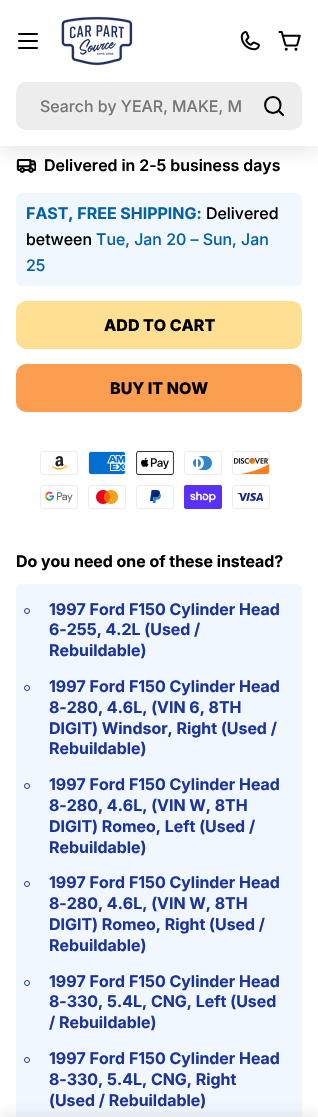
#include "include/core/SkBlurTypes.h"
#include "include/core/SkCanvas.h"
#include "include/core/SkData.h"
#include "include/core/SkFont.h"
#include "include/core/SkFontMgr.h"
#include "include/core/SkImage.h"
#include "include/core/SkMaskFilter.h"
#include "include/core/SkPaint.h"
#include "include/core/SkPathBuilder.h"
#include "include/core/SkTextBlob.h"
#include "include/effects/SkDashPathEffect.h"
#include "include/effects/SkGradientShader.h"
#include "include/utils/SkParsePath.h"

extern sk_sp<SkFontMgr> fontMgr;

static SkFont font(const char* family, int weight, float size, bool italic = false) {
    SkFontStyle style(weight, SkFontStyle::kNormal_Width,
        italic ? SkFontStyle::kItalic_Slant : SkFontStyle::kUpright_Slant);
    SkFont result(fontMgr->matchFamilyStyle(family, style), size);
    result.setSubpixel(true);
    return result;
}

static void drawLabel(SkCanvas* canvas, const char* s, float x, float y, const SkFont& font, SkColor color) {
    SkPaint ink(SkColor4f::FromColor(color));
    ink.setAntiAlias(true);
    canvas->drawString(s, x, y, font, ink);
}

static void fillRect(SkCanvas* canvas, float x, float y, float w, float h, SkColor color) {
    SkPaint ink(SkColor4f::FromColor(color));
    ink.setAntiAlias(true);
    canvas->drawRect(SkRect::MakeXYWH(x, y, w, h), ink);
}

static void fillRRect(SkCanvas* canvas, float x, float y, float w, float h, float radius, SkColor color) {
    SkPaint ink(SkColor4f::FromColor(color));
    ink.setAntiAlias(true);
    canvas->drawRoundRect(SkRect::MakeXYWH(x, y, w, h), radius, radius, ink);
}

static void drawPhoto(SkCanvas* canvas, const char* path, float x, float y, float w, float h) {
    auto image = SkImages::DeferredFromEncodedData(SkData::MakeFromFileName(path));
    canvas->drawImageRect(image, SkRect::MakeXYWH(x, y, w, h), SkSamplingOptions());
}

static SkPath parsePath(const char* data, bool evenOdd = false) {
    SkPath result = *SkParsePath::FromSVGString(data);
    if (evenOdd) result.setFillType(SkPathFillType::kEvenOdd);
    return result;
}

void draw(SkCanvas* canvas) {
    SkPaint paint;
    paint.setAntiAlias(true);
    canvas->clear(0xFFFFFFFF);
    drawPhoto(canvas, "assets/img4.png", 16, 159, 20, 14);
    paint.setColor(0x1A000000);
    paint.setMaskFilter(SkMaskFilter::MakeBlur(kNormal_SkBlurStyle, 9));
    canvas->drawRect(SkRect::MakeXYWH(0, 4, 318, 146), paint);
    paint.setMaskFilter(nullptr);
    fillRect(canvas, 0, 0, 318, 146, 0xFFFFFFFF);
    fillRRect(canvas, 18, 40, 20, 2, 1, 0xFF000000);
    fillRRect(canvas, 18, 33, 20, 2, 1, 0xFF000000);
    fillRRect(canvas, 18, 47, 20, 2, 1, 0xFF000000);
    drawPhoto(canvas, "assets/img1.png", 61, 16, 72, 50);
    drawPhoto(canvas, "assets/img2.png", 240, 31, 20, 20);
    drawPhoto(canvas, "assets/img3.png", 278, 31, 23, 20);
    fillRRect(canvas, 16, 82, 286, 48, 10, 0xFFEDEDED);
    SkFont font1 = font("Inter", 500, 16);
    drawLabel(canvas, "Search by YEAR, MAKE, M", 40, 112, font1, 0xFF777777);
    paint.setStroke(true);
    paint.setStrokeWidth(2);
    paint.setStrokeCap(SkPaint::kRound_Cap);
    paint.setStrokeJoin(SkPaint::kRound_Join);
    paint.setColor(0xFF000000);
    canvas->drawPath(parsePath("M273 113C283 113 283 97 273 97C262.5 97 262.5 113 273 113ZM278.5 110.5L283 115"), paint);
    SkFont font2 = font("Inter", 600, 16);
    drawLabel(canvas, "Delivered in 2-5 business days", 44, 171, font2, 0xFF000000);
    fillRRect(canvas, 16, 193, 286, 93, 6, 0xFFF1F7FF);
    SkFont font3 = font("Inter", 700, 16);
    drawLabel(canvas, "FAST, FREE SHIPPING:", 26, 219, font3, 0xFF0462A2);
    drawLabel(canvas, "Delivered", 206, 219, font1, 0xFF000000);
    drawLabel(canvas, "between", 26, 245, font1, 0xFF000000);
    drawLabel(canvas, "Tue, Jan 20 – Sun, Jan", 96, 245, font1, 0xFF0462A2);
    drawLabel(canvas, "25", 26, 271, font1, 0xFF0462A2);
    paint.setStroke(false);
    paint.setColor(0xFFFFE093);
    canvas->drawRoundRect(SkRect::MakeXYWH(16.5f, 301.5f, 285, 47), 9.5f, 9.5f, paint);
    paint.setStroke(true);
    paint.setStrokeWidth(1);
    paint.setStrokeCap(SkPaint::kButt_Cap);
    paint.setStrokeJoin(SkPaint::kMiter_Join);
    canvas->drawRoundRect(SkRect::MakeXYWH(16.5f, 301.5f, 285, 47), 9.5f, 9.5f, paint);
    SkFont font4 = font("Inter", 800, 16);
    drawLabel(canvas, "ADD TO CART", 104, 331, font4, 0xFF000000);
    fillRRect(canvas, 16, 364, 286, 48, 10, 0xFFFC9E4F);
    drawLabel(canvas, "BUY IT NOW", 110, 394, font4, 0xFF000000);
    drawPhoto(canvas, "assets/img5.png", 40, 451, 38, 24);
    drawPhoto(canvas, "assets/img6.png", 88, 451, 38, 24);
    drawPhoto(canvas, "assets/img7.png", 136, 451, 38, 24);
    drawPhoto(canvas, "assets/img8.png", 184, 451, 38, 24);
    drawPhoto(canvas, "assets/img9.png", 232, 451, 38, 24);
    drawPhoto(canvas, "assets/img10.png", 40, 485, 38, 24);
    drawPhoto(canvas, "assets/img11.png", 88, 485, 38, 24);
    drawPhoto(canvas, "assets/img12.png", 136, 485, 38, 24);
    drawPhoto(canvas, "assets/img13.png", 184, 485, 38, 24);
    drawPhoto(canvas, "assets/img14.png", 232, 485, 38, 24);
    drawLabel(canvas, "Do you need one of these instead?", 16, 567, font3, 0xFF000000);
    fillRRect(canvas, 16, 584, 286, 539, 6, 0xFFF1F7FF);
    paint.setColor(0xFF1D349A);
    canvas->drawCircle(27, 611, 2.5f, paint);
    drawLabel(canvas, "1997 Ford F150 Cylinder Head", 49, 615, font3, 0xFF1D349A);
    drawLabel(canvas, "6-255, 4.2L (Used /", 49, 635, font3, 0xFF1D349A);
    drawLabel(canvas, "Rebuildable)", 49, 656, font3, 0xFF1D349A);
    canvas->drawCircle(27, 688, 2.5f, paint);
    drawLabel(canvas, "1997 Ford F150 Cylinder Head", 49, 692, font3, 0xFF1D349A);
    drawLabel(canvas, "8-280, 4.6L, (VIN 6, 8TH", 49, 713, font3, 0xFF1D349A);
    drawLabel(canvas, "DIGIT) Windsor, Right (Used /", 49, 734, font3, 0xFF1D349A);
    drawLabel(canvas, "Rebuildable)", 49, 754, font3, 0xFF1D349A);
    canvas->drawCircle(27, 786, 2.5f, paint);
    drawLabel(canvas, "1997 Ford F150 Cylinder Head", 49, 790, font3, 0xFF1D349A);
    drawLabel(canvas, "8-280, 4.6L, (VIN W, 8TH", 49, 811, font3, 0xFF1D349A);
    drawLabel(canvas, "DIGIT) Romeo, Left (Used /", 49, 832, font3, 0xFF1D349A);
    drawLabel(canvas, "Rebuildable)", 49, 853, font3, 0xFF1D349A);
    canvas->drawCircle(27, 884, 2.5f, paint);
    drawLabel(canvas, "1997 Ford F150 Cylinder Head", 49, 888, font3, 0xFF1D349A);
    drawLabel(canvas, "8-280, 4.6L, (VIN W, 8TH", 49, 909, font3, 0xFF1D349A);
    drawLabel(canvas, "DIGIT) Romeo, Right (Used /", 49, 930, font3, 0xFF1D349A);
    drawLabel(canvas, "Rebuildable)", 49, 951, font3, 0xFF1D349A);
    canvas->drawCircle(27, 983, 2.5f, paint);
    drawLabel(canvas, "1997 Ford F150 Cylinder Head", 49, 987, font3, 0xFF1D349A);
    drawLabel(canvas, "8-330, 5.4L, CNG, Left (Used", 49, 1007, font3, 0xFF1D349A);
    drawLabel(canvas, "/ Rebuildable)", 49, 1028, font3, 0xFF1D349A);
    canvas->drawCircle(27, 1060, 2.5f, paint);
    drawLabel(canvas, "1997 Ford F150 Cylinder Head", 49, 1064, font3, 0xFF1D349A);
    drawLabel(canvas, "8-330, 5.4L, CNG, Right", 49, 1085, font3, 0xFF1D349A);
    drawLabel(canvas, "(Used / Rebuildable)", 49, 1106, font3, 0xFF1D349A);
    paint.setStroke(false);
    paint.setColor(0x0D000000);
    paint.setMaskFilter(SkMaskFilter::MakeBlur(kNormal_SkBlurStyle, 5));
    canvas->drawRect(SkRect::MakeXYWH(0, 1111, 318, 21), paint);
    paint.setMaskFilter(nullptr);
}
